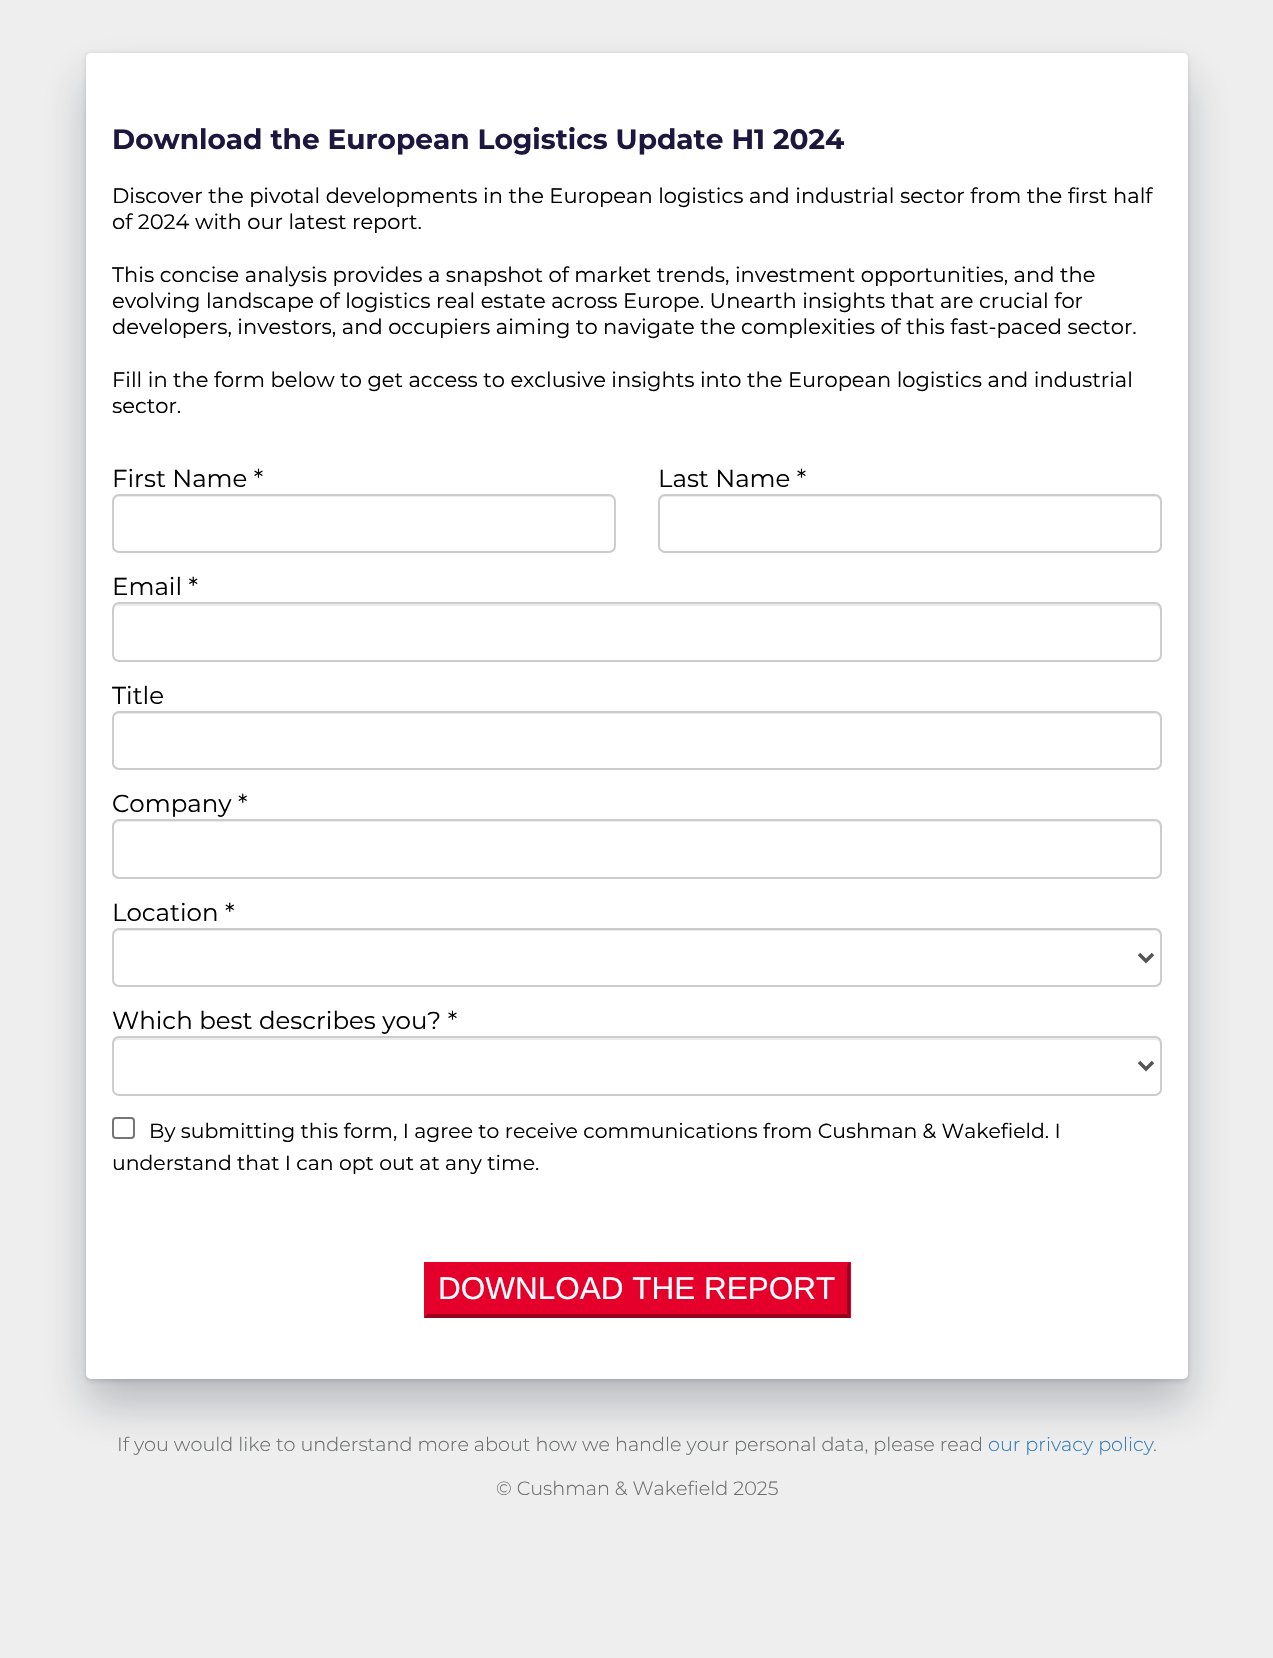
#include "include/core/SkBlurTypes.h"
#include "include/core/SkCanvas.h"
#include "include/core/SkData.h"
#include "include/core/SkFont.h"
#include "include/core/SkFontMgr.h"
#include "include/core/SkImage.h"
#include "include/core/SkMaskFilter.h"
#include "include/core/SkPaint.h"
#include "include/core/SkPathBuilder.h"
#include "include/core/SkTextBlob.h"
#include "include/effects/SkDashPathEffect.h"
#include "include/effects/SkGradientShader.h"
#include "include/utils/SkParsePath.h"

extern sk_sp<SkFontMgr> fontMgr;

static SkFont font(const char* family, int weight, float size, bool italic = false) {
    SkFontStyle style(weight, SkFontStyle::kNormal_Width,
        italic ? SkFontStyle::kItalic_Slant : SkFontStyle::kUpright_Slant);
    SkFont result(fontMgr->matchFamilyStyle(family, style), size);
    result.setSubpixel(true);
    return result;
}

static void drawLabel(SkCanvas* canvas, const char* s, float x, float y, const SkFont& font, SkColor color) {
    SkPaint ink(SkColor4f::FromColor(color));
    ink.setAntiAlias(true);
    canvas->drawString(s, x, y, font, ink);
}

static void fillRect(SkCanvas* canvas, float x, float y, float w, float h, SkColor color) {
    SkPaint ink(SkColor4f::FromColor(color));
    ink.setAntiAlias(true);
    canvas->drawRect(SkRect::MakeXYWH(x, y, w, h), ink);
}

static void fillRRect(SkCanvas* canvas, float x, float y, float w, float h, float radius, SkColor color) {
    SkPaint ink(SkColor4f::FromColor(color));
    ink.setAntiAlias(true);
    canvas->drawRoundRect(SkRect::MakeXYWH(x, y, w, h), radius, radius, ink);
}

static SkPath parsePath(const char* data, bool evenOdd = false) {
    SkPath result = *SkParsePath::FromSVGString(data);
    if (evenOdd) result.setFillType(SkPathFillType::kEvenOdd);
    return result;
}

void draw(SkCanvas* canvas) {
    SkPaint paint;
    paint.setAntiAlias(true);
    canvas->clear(0xFFEEEEEE);
    paint.setColor(0x3D0D1A2C);
    paint.setMaskFilter(SkMaskFilter::MakeBlur(kNormal_SkBlurStyle, 22));
    canvas->drawRoundRect(SkRect::MakeXYWH(86, 79, 1102, 1326), 5, 5, paint);
    paint.setMaskFilter(nullptr);
    paint.setColor(0x290D1A2C);
    paint.setMaskFilter(SkMaskFilter::MakeBlur(kNormal_SkBlurStyle, 2.5f));
    canvas->drawRoundRect(SkRect::MakeXYWH(86, 54, 1102, 1327), 5, 5, paint);
    paint.setMaskFilter(nullptr);
    fillRRect(canvas, 86, 53, 1102, 1326, 5, 0xFFFFFFFF);
    SkFont font1 = font("Montserrat", 700, 28);
    drawLabel(canvas, "Download the European Logistics Update H1 2024", 112, 149, font1, 0xFF1D1740);
    SkFont font2 = font("Montserrat", 400, 21);
    drawLabel(canvas, "Discover the pivotal developments in the European logistics and industrial sector from the first half", 112, 203, font2, 0xFF000000);
    drawLabel(canvas, "of 2024 with our latest report.", 112, 229, font2, 0xFF000000);
    drawLabel(canvas, "This concise analysis provides a snapshot of market trends, investment opportunities, and the", 112, 282, font2, 0xFF000000);
    drawLabel(canvas, "evolving landscape of logistics real estate across Europe. Unearth insights that are crucial for", 112, 308, font2, 0xFF000000);
    drawLabel(canvas, "developers, investors, and occupiers aiming to navigate the complexities of this fast-paced sector.", 112, 334, font2, 0xFF000000);
    drawLabel(canvas, "Fill in the form below to get access to exclusive insights into the European logistics and industrial", 112, 387, font2, 0xFF000000);
    drawLabel(canvas, "sector.", 112, 413, font2, 0xFF000000);
    SkFont font3 = font("Montserrat", 400, 24.5f);
    drawLabel(canvas, "First Name *", 112, 487, font3, 0xFF000000);
    paint.setColor(0xFFEBEBEB);
    canvas->drawPath(parsePath("M119 497H609C612 497 614 499 614 502V500C614 497 612 495 609 495H119C116 495 114 497 114 500V502C114 499 116 497 119 497Z"), paint);
    paint.setStroke(true);
    paint.setStrokeWidth(2);
    paint.setColor(0xFFCCCCCC);
    canvas->drawRoundRect(SkRect::MakeXYWH(113, 495, 502, 57), 6, 6, paint);
    drawLabel(canvas, "Last Name *", 658, 487, font3, 0xFF000000);
    paint.setStroke(false);
    paint.setColor(0xFFEBEBEB);
    canvas->drawPath(parsePath("M665 497H1155C1158 497 1160 499 1160 502V500C1160 497 1158 495 1155 495H665C662 495 660 497 660 500V502C660 499 662 497 665 497Z"), paint);
    paint.setStroke(true);
    paint.setColor(0xFFCCCCCC);
    canvas->drawRoundRect(SkRect::MakeXYWH(659, 495, 502, 57), 6, 6, paint);
    drawLabel(canvas, "Email *", 112, 595, font3, 0xFF000000);
    paint.setStroke(false);
    paint.setColor(0xFFEBEBEB);
    canvas->drawPath(parsePath("M119 606H1155C1158 606 1160 608 1160 611V609C1160 606 1158 604 1155 604H119C116 604 114 606 114 609V611C114 608 116 606 119 606Z"), paint);
    paint.setStroke(true);
    paint.setColor(0xFFCCCCCC);
    canvas->drawRoundRect(SkRect::MakeXYWH(113, 603, 1048, 58), 6, 6, paint);
    drawLabel(canvas, "Title", 112, 704, font3, 0xFF000000);
    paint.setStroke(false);
    paint.setColor(0xFFEBEBEB);
    canvas->drawPath(parsePath("M119 714H1155C1158 714 1160 716 1160 719V717C1160 714 1158 712 1155 712H119C116 712 114 714 114 717V719C114 716 116 714 119 714Z"), paint);
    paint.setStroke(true);
    paint.setColor(0xFFCCCCCC);
    canvas->drawRoundRect(SkRect::MakeXYWH(113, 712, 1048, 57), 6, 6, paint);
    drawLabel(canvas, "Company *", 112, 812, font3, 0xFF000000);
    paint.setStroke(false);
    paint.setColor(0xFFEBEBEB);
    canvas->drawPath(parsePath("M119 822H1155C1158 822 1160 825 1160 828V826C1160 823 1158 821 1155 821H119C116 821 114 823 114 826V828C114 825 116 822 119 822Z"), paint);
    paint.setStroke(true);
    paint.setColor(0xFFCCCCCC);
    canvas->drawRoundRect(SkRect::MakeXYWH(113, 820, 1048, 58), 6, 6, paint);
    drawLabel(canvas, "Location *", 112, 921, font3, 0xFF000000);
    paint.setStroke(false);
    paint.setColor(0xFFEBEBEB);
    canvas->drawPath(parsePath("M119 931H1155C1158 931 1160 933 1160 936V934C1160 931 1158 929 1155 929H119C116 929 114 931 114 934V936C114 933 116 931 119 931Z"), paint);
    paint.setStroke(true);
    paint.setColor(0xFFCCCCCC);
    canvas->drawRoundRect(SkRect::MakeXYWH(113, 929, 1048, 57), 6, 6, paint);
    paint.setStrokeWidth(3.5f);
    paint.setColor(0xFF555555);
    canvas->drawPath(parsePath("M1139 954L1146 961L1153 954"), paint);
    drawLabel(canvas, "Which best describes you? *", 112, 1029, font3, 0xFF000000);
    paint.setStroke(false);
    paint.setColor(0xFFEBEBEB);
    canvas->drawPath(parsePath("M119 1040H1155C1158 1040 1160 1042 1160 1045V1043C1160 1040 1158 1038 1155 1038H119C116 1038 114 1040 114 1043V1045C114 1042 116 1040 119 1040Z"), paint);
    paint.setStroke(true);
    paint.setStrokeWidth(2);
    paint.setColor(0xFFCCCCCC);
    canvas->drawRoundRect(SkRect::MakeXYWH(113, 1037, 1048, 58), 6, 6, paint);
    paint.setStrokeWidth(3.5f);
    paint.setColor(0xFF555555);
    canvas->drawPath(parsePath("M1139 1062L1146 1069L1153 1062"), paint);
    paint.setStrokeWidth(2);
    paint.setColor(0xFF767676);
    canvas->drawRoundRect(SkRect::MakeXYWH(113, 1118, 21, 20), 3, 3, paint);
    SkFont font4 = font("Montserrat", 400, 20.4f);
    drawLabel(canvas, "By submitting this form, I agree to receive communications from Cushman & Wakefield. I", 149, 1138, font4, 0xFF000000);
    drawLabel(canvas, "understand that I can opt out at any time.", 112, 1170, font4, 0xFF000000);
    fillRect(canvas, 424, 1262, 427, 56, 0xFFE4002B);
    paint.setStroke(false);
    paint.setColor(0xFF98001D);
    canvas->drawPath(parsePath("M850 1262V1318L847 1314V1265Z"), paint);
    canvas->drawPath(parsePath("M850 1318H424L427 1314H847Z"), paint);
    paint.setColor(0xFFE4002B);
    canvas->drawPath(parsePath("M424 1318V1262L427 1265V1314Z"), paint);
    SkFont font5 = font("Liberation Sans", 400, 31.5f);
    drawLabel(canvas, "DOWNLOAD THE REPORT", 438, 1299, font5, 0xFFFFFFFF);
    SkFont font6 = font("Montserrat", 300, 19.25f);
    drawLabel(canvas, "If you would like to understand more about how we handle your personal data, please read", 117, 1451, font6, 0xFF686B6B);
    drawLabel(canvas, "our privacy policy", 988, 1451, font6, 0xFF337AB7);
    drawLabel(canvas, ".", 1153, 1451, font6, 0xFF686B6B);
    drawLabel(canvas, "© Cushman & Wakefield 2025", 496, 1495, font6, 0xFF686B6B);
}
